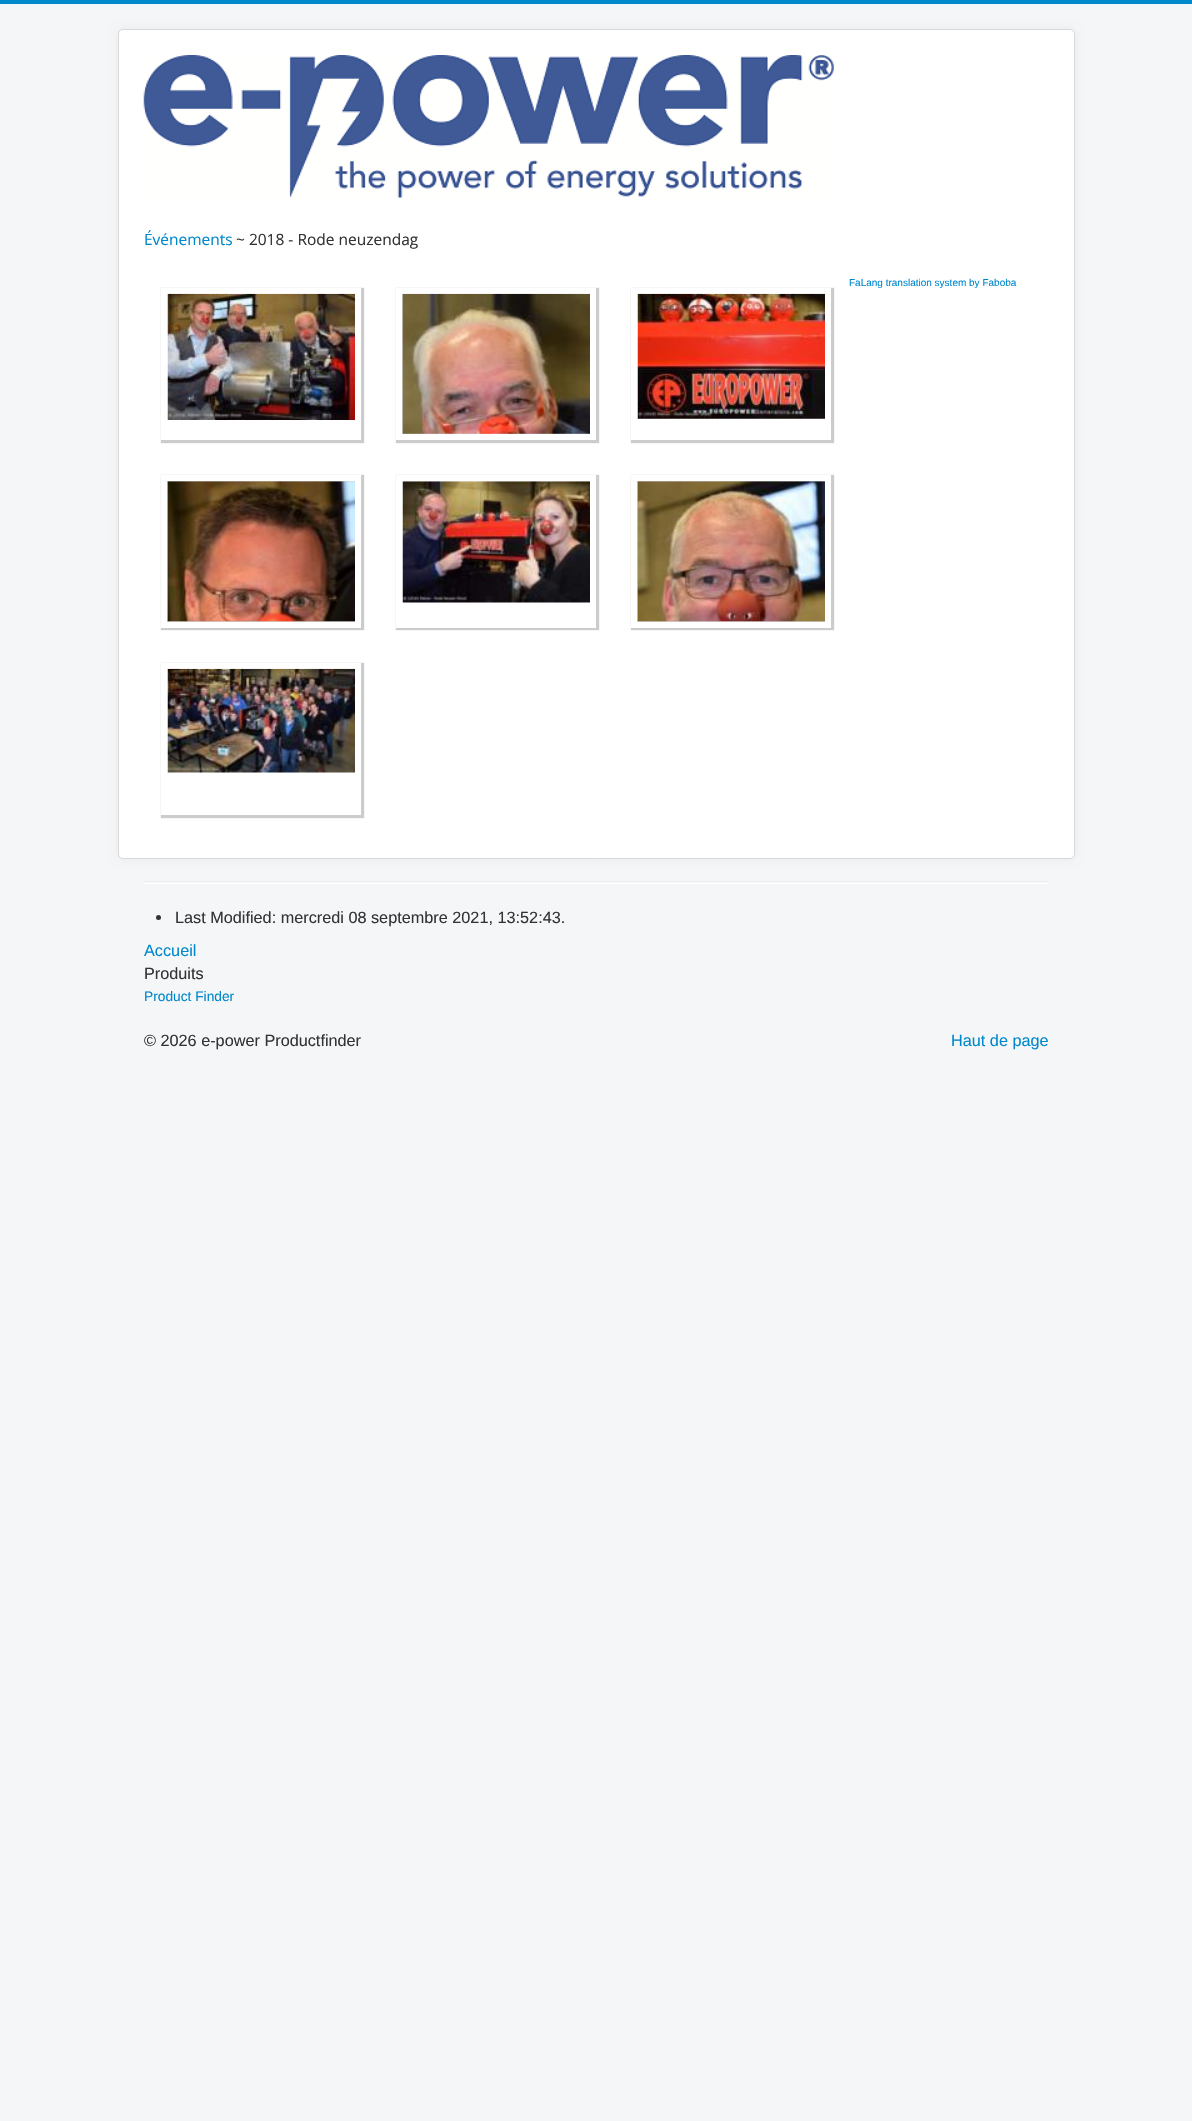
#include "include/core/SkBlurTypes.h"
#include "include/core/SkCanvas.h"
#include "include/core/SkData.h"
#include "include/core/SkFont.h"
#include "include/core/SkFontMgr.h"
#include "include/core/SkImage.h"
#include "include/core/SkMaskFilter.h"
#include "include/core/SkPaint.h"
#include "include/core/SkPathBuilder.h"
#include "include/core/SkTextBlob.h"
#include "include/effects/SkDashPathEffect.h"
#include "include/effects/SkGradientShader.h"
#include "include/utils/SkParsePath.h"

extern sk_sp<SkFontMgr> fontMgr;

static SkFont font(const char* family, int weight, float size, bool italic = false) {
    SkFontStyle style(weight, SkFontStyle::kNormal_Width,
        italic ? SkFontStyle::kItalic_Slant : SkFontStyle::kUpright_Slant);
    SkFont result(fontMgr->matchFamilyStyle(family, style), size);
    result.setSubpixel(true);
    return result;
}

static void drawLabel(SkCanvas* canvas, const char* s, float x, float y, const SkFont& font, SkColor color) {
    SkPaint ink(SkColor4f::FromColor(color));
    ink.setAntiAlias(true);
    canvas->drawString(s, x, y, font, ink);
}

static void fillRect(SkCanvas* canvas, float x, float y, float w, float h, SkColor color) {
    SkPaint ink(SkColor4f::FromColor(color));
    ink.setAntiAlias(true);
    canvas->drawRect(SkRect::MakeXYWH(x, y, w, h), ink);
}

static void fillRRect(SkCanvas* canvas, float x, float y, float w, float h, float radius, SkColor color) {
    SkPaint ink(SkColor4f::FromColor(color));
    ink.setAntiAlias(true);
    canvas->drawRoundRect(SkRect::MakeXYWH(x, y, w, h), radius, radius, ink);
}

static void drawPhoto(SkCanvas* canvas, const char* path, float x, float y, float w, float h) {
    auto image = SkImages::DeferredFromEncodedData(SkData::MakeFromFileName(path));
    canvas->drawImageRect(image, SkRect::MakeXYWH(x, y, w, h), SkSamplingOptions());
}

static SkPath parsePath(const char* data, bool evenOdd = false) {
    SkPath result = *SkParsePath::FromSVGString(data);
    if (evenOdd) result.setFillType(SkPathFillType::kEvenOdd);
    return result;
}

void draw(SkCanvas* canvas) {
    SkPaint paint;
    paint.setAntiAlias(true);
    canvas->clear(0xFFF4F6F7);
    fillRect(canvas, 0, 0, 1192, 4, 0xFF0088CC);
    paint.setColor(0x0D000000);
    paint.setMaskFilter(SkMaskFilter::MakeBlur(kNormal_SkBlurStyle, 4));
    canvas->drawRoundRect(SkRect::MakeXYWH(118, 29, 957, 830), 5, 5, paint);
    paint.setMaskFilter(nullptr);
    fillRRect(canvas, 118, 29, 957, 830, 5, 0xFFFFFFFF);
    paint.setStroke(true);
    paint.setStrokeWidth(1);
    paint.setColor(0x26000000);
    canvas->drawRoundRect(SkRect::MakeXYWH(118.5f, 29.5f, 956, 829), 4.5f, 4.5f, paint);
    drawPhoto(canvas, "assets/img1.png", 143, 55, 691, 143);
    SkFont font1 = font("Open Sans", 400, 15.5f);
    drawLabel(canvas, "Événements", 144, 245, font1, 0xFF0088CC);
    drawLabel(canvas, "~ 2018 - Rode neuzendag", 236, 245, font1, 0xFF333333);
    canvas->save();
    canvas->clipPath(parsePath("M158 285H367V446H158ZM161 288H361V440H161Z", true), true);
    paint.setStroke(false);
    paint.setColor(0xFFCCCCCC);
    paint.setMaskFilter(SkMaskFilter::MakeBlur(kNormal_SkBlurStyle, 0.5f));
    canvas->drawRect(SkRect::MakeXYWH(161, 288, 203, 155), paint);
    paint.setMaskFilter(nullptr);
    canvas->restore();
    paint.setStroke(true);
    paint.setStrokeWidth(6);
    paint.setColor(0xFFFFFFFF);
    canvas->drawRect(SkRect::MakeXYWH(164, 291, 194, 146), paint);
    drawPhoto(canvas, "assets/img2.png", 167, 293, 188, 127);
    paint.setStroke(false);
    paint.setColor(0xFFCCCCCC);
    paint.setMaskFilter(SkMaskFilter::MakeBlur(kNormal_SkBlurStyle, 0.5f));
    canvas->drawRect(SkRect::MakeXYWH(396, 288, 203, 155), paint);
    paint.setMaskFilter(nullptr);
    paint.setStroke(true);
    paint.setColor(0xFFFFFFFF);
    canvas->drawRect(SkRect::MakeXYWH(399, 291, 194, 146), paint);
    drawPhoto(canvas, "assets/img3.png", 402, 293, 188, 141);
    canvas->save();
    canvas->clipPath(parsePath("M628 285H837V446H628ZM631 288H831V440H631Z", true), true);
    paint.setStroke(false);
    paint.setColor(0xFFCCCCCC);
    paint.setMaskFilter(SkMaskFilter::MakeBlur(kNormal_SkBlurStyle, 0.5f));
    canvas->drawRect(SkRect::MakeXYWH(631, 288, 203, 155), paint);
    paint.setMaskFilter(nullptr);
    canvas->restore();
    paint.setStroke(true);
    paint.setColor(0xFFFFFFFF);
    canvas->drawRect(SkRect::MakeXYWH(634, 291, 194, 146), paint);
    drawPhoto(canvas, "assets/img4.png", 637, 293, 188, 126);
    paint.setStroke(false);
    paint.setColor(0xFFCCCCCC);
    paint.setMaskFilter(SkMaskFilter::MakeBlur(kNormal_SkBlurStyle, 0.5f));
    canvas->drawRect(SkRect::MakeXYWH(161, 475, 203, 155), paint);
    paint.setMaskFilter(nullptr);
    paint.setStroke(true);
    paint.setColor(0xFFFFFFFF);
    canvas->drawRect(SkRect::MakeXYWH(164, 478, 194, 147), paint);
    drawPhoto(canvas, "assets/img5.png", 167, 481, 188, 141);
    canvas->save();
    canvas->clipPath(parsePath("M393 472H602V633H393ZM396 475H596V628H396Z", true), true);
    paint.setStroke(false);
    paint.setColor(0xFFCCCCCC);
    paint.setMaskFilter(SkMaskFilter::MakeBlur(kNormal_SkBlurStyle, 0.5f));
    canvas->drawRect(SkRect::MakeXYWH(396, 475, 203, 155), paint);
    paint.setMaskFilter(nullptr);
    canvas->restore();
    paint.setStroke(true);
    paint.setColor(0xFFFFFFFF);
    canvas->drawRect(SkRect::MakeXYWH(399, 478, 194, 147), paint);
    drawPhoto(canvas, "assets/img6.png", 402, 481, 188, 122);
    paint.setStroke(false);
    paint.setColor(0xFFCCCCCC);
    paint.setMaskFilter(SkMaskFilter::MakeBlur(kNormal_SkBlurStyle, 0.5f));
    canvas->drawRect(SkRect::MakeXYWH(631, 475, 203, 155), paint);
    paint.setMaskFilter(nullptr);
    paint.setStroke(true);
    paint.setColor(0xFFFFFFFF);
    canvas->drawRect(SkRect::MakeXYWH(634, 478, 194, 147), paint);
    drawPhoto(canvas, "assets/img7.png", 637, 481, 188, 141);
    canvas->save();
    canvas->clipPath(parsePath("M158 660H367V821H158ZM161 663H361V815H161Z", true), true);
    paint.setStroke(false);
    paint.setColor(0xFFCCCCCC);
    paint.setMaskFilter(SkMaskFilter::MakeBlur(kNormal_SkBlurStyle, 0.5f));
    canvas->drawRect(SkRect::MakeXYWH(161, 663, 203, 155), paint);
    paint.setMaskFilter(nullptr);
    canvas->restore();
    paint.setStroke(true);
    paint.setColor(0xFFFFFFFF);
    canvas->drawRect(SkRect::MakeXYWH(164, 666, 194, 146), paint);
    drawPhoto(canvas, "assets/img8.png", 167, 668, 188, 105);
    SkFont font2 = font("Liberation Sans", 400, 10);
    drawLabel(canvas, "FaLang translation system by Faboba", 849, 286, font2, 0xFF0088CC);
    fillRect(canvas, 144, 881, 905, 1, 0xFFEEEEEE);
    fillRect(canvas, 144, 883, 905, 1, 0xFFFFFFFF);
    paint.setStroke(false);
    paint.setColor(0xFF333333);
    canvas->drawCircle(158.5f, 917.5f, 2.5f, paint);
    SkFont font3 = font("Liberation Sans", 400, 16.25f);
    drawLabel(canvas, "Last Modified: mercredi 08 septembre 2021, 13:52:43.", 175, 923, font3, 0xFF333333);
    drawLabel(canvas, "Accueil", 144, 956, font3, 0xFF0088CC);
    drawLabel(canvas, "Produits", 144, 979, font3, 0xFF333333);
    SkFont font4 = font("Liberation Sans", 400, 13.75f);
    drawLabel(canvas, "Product Finder", 144, 1001, font4, 0xFF0088CC);
    drawLabel(canvas, "© 2026 e-power Productfinder", 144, 1046, font3, 0xFF333333);
    drawLabel(canvas, "Haut de page", 951, 1046, font3, 0xFF0088CC);
}
